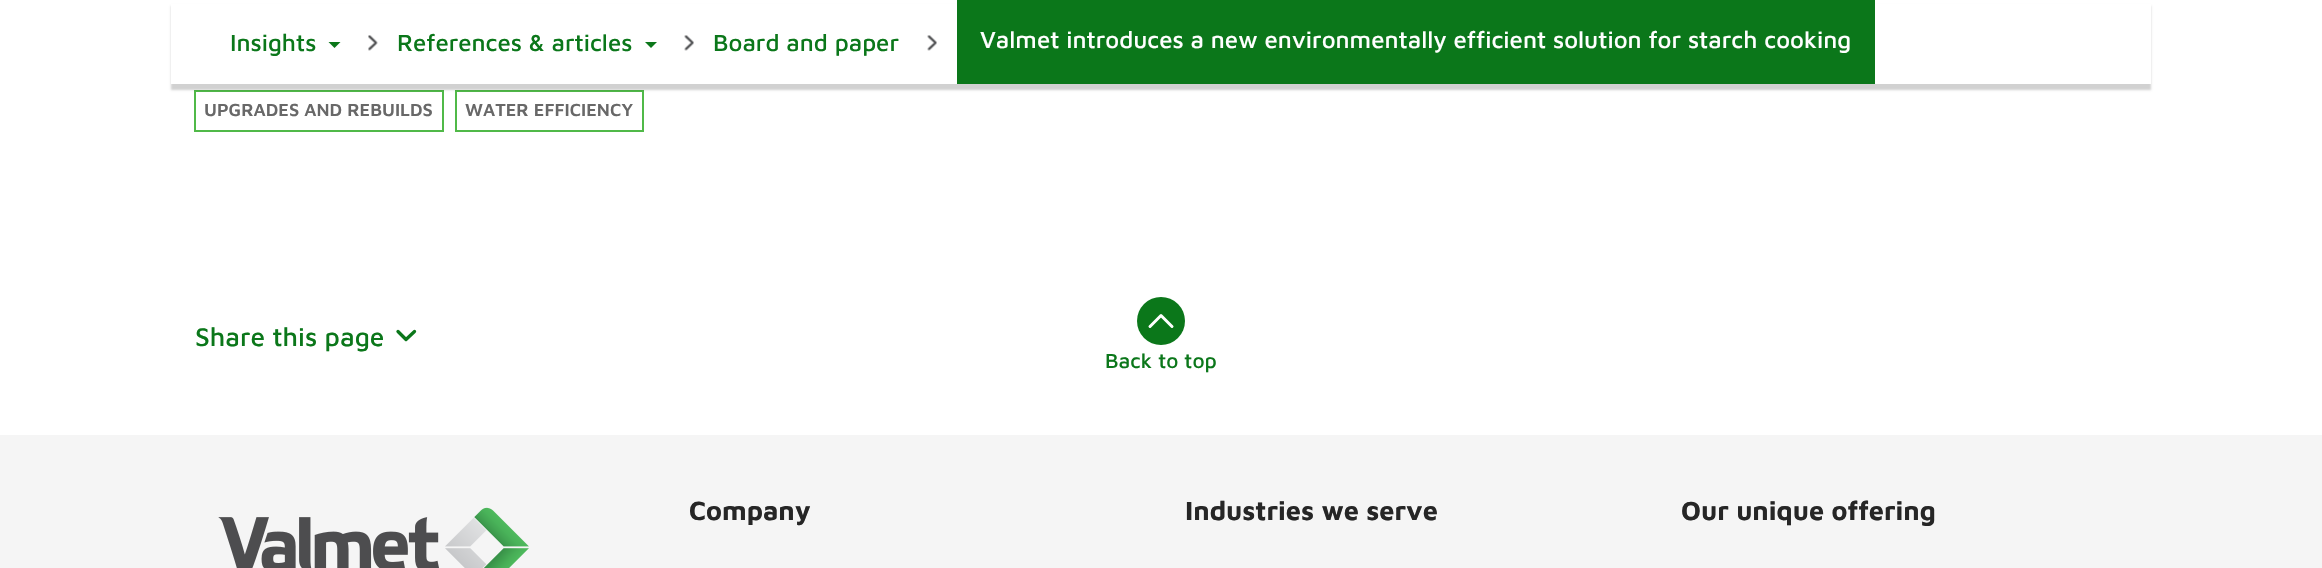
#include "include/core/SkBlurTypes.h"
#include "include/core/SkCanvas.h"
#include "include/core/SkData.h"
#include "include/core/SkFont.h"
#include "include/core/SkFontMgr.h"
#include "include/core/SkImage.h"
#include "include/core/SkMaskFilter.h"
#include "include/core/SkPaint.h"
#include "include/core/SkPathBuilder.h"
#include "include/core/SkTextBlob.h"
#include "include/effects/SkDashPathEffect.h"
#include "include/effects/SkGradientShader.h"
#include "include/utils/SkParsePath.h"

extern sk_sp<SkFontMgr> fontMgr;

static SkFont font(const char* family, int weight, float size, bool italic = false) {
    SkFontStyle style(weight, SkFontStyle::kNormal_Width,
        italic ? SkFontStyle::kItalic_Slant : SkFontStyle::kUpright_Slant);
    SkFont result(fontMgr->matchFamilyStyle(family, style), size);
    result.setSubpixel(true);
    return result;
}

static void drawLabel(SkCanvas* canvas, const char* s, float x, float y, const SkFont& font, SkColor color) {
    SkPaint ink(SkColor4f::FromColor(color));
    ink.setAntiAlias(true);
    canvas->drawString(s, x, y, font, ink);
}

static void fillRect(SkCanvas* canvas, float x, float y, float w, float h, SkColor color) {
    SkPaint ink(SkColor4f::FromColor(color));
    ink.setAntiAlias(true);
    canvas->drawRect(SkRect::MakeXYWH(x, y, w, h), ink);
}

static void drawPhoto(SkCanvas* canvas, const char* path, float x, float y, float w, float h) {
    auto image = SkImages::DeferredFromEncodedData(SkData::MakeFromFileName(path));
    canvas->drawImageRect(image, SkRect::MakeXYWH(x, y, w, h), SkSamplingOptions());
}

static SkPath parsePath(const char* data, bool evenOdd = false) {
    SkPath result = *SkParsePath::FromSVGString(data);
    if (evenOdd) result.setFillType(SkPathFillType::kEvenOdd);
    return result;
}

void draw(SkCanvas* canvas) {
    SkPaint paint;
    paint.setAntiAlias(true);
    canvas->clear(0xFFFFFFFF);
    paint.setStroke(true);
    paint.setStrokeWidth(2);
    paint.setColor(0xFF50B948);
    canvas->drawRect(SkRect::MakeXYWH(195, 91, 248, 40), paint);
    canvas->drawRect(SkRect::MakeXYWH(456, 91, 187, 40), paint);
    paint.setStroke(false);
    paint.setColor(0x2E000000);
    paint.setMaskFilter(SkMaskFilter::MakeBlur(kNormal_SkBlurStyle, 1));
    canvas->drawRect(SkRect::MakeXYWH(171, 6, 1980, 84), paint);
    paint.setMaskFilter(nullptr);
    fillRect(canvas, 171, 4, 1980, 80, 0xFFFFFFFF);
    SkFont font1 = font("Maven Pro", 500, 24);
    drawLabel(canvas, "Insights", 230, 51, font1, 0xFF0B771A);
    paint.setColor(0xFF0B771A);
    canvas->drawPath(parsePath("M328.5 42H340.5L334.5 48Z"), paint);
    drawPhoto(canvas, "assets/img1.png", 368, 35, 10, 16);
    drawLabel(canvas, "References & articles", 397, 51, font1, 0xFF0B771A);
    canvas->drawPath(parsePath("M645 42H657L651 48Z"), paint);
    drawPhoto(canvas, "assets/img2.png", 684, 35, 10, 16);
    drawLabel(canvas, "Board and paper", 713, 51, font1, 0xFF0B771A);
    drawPhoto(canvas, "assets/img2.png", 927, 35, 10, 16);
    fillRect(canvas, 957, 0, 918, 84, 0xFF0B771A);
    drawLabel(canvas, "Valmet introduces a new environmentally efficient solution for starch cooking", 980, 48, font1, 0xFFFFFFFF);
    SkFont font2 = font("Maven Pro", 600, 18);
    drawLabel(canvas, "UPGRADES AND REBUILDS", 204, 116, font2, 0xFF686868);
    drawLabel(canvas, "WATER EFFICIENCY", 465, 116, font2, 0xFF686868);
    SkFont font3 = font("Maven Pro", 500, 26.25f);
    drawLabel(canvas, "Share this page", 195, 346, font3, 0xFF0B771A);
    paint.setStroke(true);
    paint.setStrokeWidth(3.3f);
    paint.setStrokeCap(SkPaint::kRound_Cap);
    paint.setStrokeJoin(SkPaint::kRound_Join);
    canvas->drawPath(parsePath("M414.5 331.5L406 339.5L398 331.5"), paint);
    paint.setStroke(false);
    canvas->drawCircle(1161, 321, 24, paint);
    paint.setStroke(true);
    paint.setStrokeWidth(3);
    paint.setColor(0xFFFFFFFF);
    canvas->drawPath(parsePath("M1150 326.5L1161 315.5L1172 326.5"), paint);
    SkFont font4 = font("Maven Pro", 500, 21);
    drawLabel(canvas, "Back to top", 1105, 368, font4, 0xFF0B771A);
    fillRect(canvas, 0, 435, 2322, 133, 0xFFF5F5F5);
    drawPhoto(canvas, "assets/img3.png", 218, 507, 311, 61);
    SkFont font5 = font("Maven Pro", 700, 27);
    drawLabel(canvas, "Company", 689, 520, font5, 0xFF262626);
    drawLabel(canvas, "Industries we serve", 1185, 520, font5, 0xFF262626);
    drawLabel(canvas, "Our unique offering", 1681, 520, font5, 0xFF262626);
}
